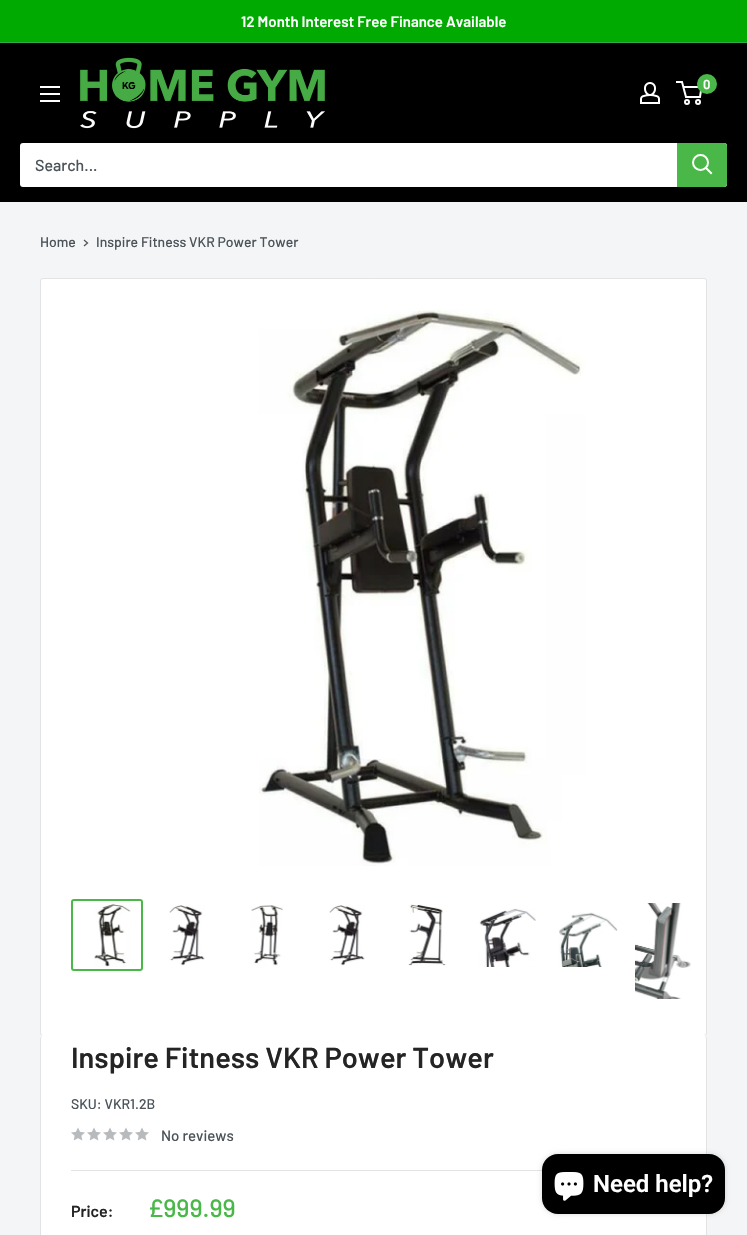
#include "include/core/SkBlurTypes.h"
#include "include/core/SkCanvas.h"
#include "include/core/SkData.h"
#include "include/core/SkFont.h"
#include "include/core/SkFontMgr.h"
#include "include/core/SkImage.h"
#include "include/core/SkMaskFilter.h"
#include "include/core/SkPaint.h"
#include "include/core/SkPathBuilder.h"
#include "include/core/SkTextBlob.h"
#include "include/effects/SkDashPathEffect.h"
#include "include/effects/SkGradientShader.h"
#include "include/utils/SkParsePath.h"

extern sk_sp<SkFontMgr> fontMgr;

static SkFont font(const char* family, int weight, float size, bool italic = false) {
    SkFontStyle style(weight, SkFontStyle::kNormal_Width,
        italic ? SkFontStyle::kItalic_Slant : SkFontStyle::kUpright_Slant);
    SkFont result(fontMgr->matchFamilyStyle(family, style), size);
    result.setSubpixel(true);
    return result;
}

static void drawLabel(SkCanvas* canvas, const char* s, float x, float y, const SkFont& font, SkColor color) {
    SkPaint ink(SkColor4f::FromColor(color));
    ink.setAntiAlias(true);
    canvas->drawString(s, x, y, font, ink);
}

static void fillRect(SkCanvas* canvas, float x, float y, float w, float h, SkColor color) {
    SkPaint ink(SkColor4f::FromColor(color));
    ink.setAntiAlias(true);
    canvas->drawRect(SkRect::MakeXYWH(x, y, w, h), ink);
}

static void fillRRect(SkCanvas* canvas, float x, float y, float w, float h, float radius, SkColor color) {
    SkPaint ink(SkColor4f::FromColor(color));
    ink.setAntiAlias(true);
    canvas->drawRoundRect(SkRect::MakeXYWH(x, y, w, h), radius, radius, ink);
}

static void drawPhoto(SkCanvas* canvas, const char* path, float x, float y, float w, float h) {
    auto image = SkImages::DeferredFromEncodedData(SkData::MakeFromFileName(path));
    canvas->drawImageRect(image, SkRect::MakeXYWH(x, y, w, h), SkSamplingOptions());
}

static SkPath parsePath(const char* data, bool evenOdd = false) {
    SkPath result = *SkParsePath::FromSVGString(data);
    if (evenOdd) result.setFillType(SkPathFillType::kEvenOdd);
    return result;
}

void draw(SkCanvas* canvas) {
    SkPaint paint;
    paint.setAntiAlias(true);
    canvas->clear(0xFFF3F5F6);
    fillRect(canvas, 0, 0, 747, 42, 0xFF00AA00);
    fillRect(canvas, 0, 42, 747, 1, 0xFF31AC48);
    SkFont font1 = font("Barlow", 600, 15);
    drawLabel(canvas, "12 Month Interest Free Finance Available", 241, 27, font1, 0xFFFFFFFF);
    fillRect(canvas, 0, 43, 747, 159, 0xFF000000);
    drawPhoto(canvas, "assets/img1.png", 80, 57, 245, 72);
    drawPhoto(canvas, "assets/img2.png", 640, 82, 20, 22);
    paint.setStroke(true);
    paint.setStrokeWidth(2);
    paint.setColor(0xFFFFFFFF);
    canvas->drawCircle(687, 102, 2, paint);
    canvas->drawCircle(698, 102, 2, paint);
    canvas->drawPath(parsePath("M683.5 87H701.5L700 97H686L682 82H676"), paint);
    paint.setStroke(false);
    paint.setColor(0xFF4AB749);
    canvas->drawCircle(707, 84, 10, paint);
    SkFont font2 = font("Barlow", 600, 13);
    drawLabel(canvas, "0", 703, 89, font2, 0xFFFFFFFF);
    drawPhoto(canvas, "assets/img3.png", 40, 86, 20, 16);
    fillRRect(canvas, 20, 143, 707, 44, 3, 0xFFFFFFFF);
    SkFont font3 = font("Barlow", 500, 16);
    drawLabel(canvas, "Search...", 35, 171, font3, 0xFF4D5459);
    canvas->drawPath(parsePath("M677 143H724C725.5 143 727 144.5 727 146V184C727 185.5 725.5 187 724 187H677Z"), paint);
    paint.setStroke(true);
    paint.setStrokeCap(SkPaint::kSquare_Cap);
    paint.setColor(0xFFFFFFFF);
    canvas->drawPath(parsePath("M711 173L706 168"), paint);
    paint.setStrokeCap(SkPaint::kButt_Cap);
    canvas->drawCircle(700.5f, 162.5f, 7.5f, paint);
    SkFont font4 = font("Barlow", 500, 14);
    drawLabel(canvas, "Home", 40, 247, font4, 0xFF4D5459);
    paint.setStrokeWidth(1.3f);
    paint.setStrokeCap(SkPaint::kSquare_Cap);
    paint.setColor(0xFF4D5459);
    canvas->drawPath(parsePath("M84.5 240.5L87.5 243L84.5 245.5"), paint);
    drawLabel(canvas, "Inspire Fitness VKR Power Tower", 96, 247, font4, 0xFF4D5459);
    paint.setStroke(false);
    paint.setColor(0xFFFFFFFF);
    canvas->drawRoundRect(SkRect::MakeXYWH(40.5f, 278.5f, 666, 757), 2.5f, 2.5f, paint);
    paint.setStroke(true);
    paint.setStrokeWidth(1);
    paint.setStrokeCap(SkPaint::kButt_Cap);
    paint.setColor(0xFFE1E3E4);
    canvas->drawRoundRect(SkRect::MakeXYWH(40.5f, 278.5f, 666, 757), 2.5f, 2.5f, paint);
    drawPhoto(canvas, "assets/img4.png", 259, 309, 326, 557);
    paint.setStrokeWidth(2);
    paint.setColor(0xFF4AB749);
    canvas->drawRoundRect(SkRect::MakeXYWH(72, 900, 70, 70), 2, 2, paint);
    drawPhoto(canvas, "assets/img5.png", 94, 903, 37, 64);
    drawPhoto(canvas, "assets/img6.png", 169, 905, 36, 61);
    drawPhoto(canvas, "assets/img7.png", 251, 905, 33, 61);
    drawPhoto(canvas, "assets/img6.png", 329, 905, 36, 61);
    drawPhoto(canvas, "assets/img8.png", 408, 904, 38, 62);
    drawPhoto(canvas, "assets/img9.png", 479, 908, 57, 59);
    drawPhoto(canvas, "assets/img10.png", 559, 912, 59, 55);
    drawPhoto(canvas, "assets/img11.png", 635, 903, 56, 96);
    paint.setStroke(false);
    paint.setColor(0xFFFFFFFF);
    canvas->drawPath(parsePath("M43 1035C41 1035 40 1037 40 1039C40 1037 41 1036 43 1036H704C706 1036 707 1037 707 1039C707 1037 706 1035 704 1035Z"), paint);
    fillRRect(canvas, 40, 1036, 667, 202, 3, 0xFFFFFFFF);
    paint.setColor(0xFFE1E3E4);
    canvas->drawPath(parsePath("M43 1036H704C706 1036 707 1037 707 1039V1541C707 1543 706 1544 704 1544H43C41 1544 40 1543 40 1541V1039C40 1037 41 1036 43 1036ZM43 1036H704C705 1036 706 1037 706 1039V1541C706 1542 705 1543 704 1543H43C42 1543 41 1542 41 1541V1039C41 1037 42 1036 43 1036Z", true), paint);
    SkFont font5 = font("Barlow", 600, 29);
    drawLabel(canvas, "Inspire Fitness VKR Power Tower", 71, 1068, font5, 0xFF242424);
    drawLabel(canvas, "SKU: VKR1.2B", 71, 1109, font4, 0xFF4D5459);
    drawPhoto(canvas, "assets/img12.png", 71, 1127, 14, 14);
    drawPhoto(canvas, "assets/img12.png", 87, 1127, 14, 14);
    drawPhoto(canvas, "assets/img12.png", 103, 1127, 14, 14);
    drawPhoto(canvas, "assets/img12.png", 119, 1127, 14, 14);
    drawPhoto(canvas, "assets/img12.png", 135, 1127, 14, 14);
    SkFont font6 = font("Barlow", 500, 15);
    drawLabel(canvas, "No reviews", 161, 1141, font6, 0xFF4D5459);
    fillRect(canvas, 71, 1170, 471, 1, 0xFFE1E3E4);
    SkFont font7 = font("Barlow", 600, 16);
    drawLabel(canvas, "Price:", 71, 1217, font7, 0xFF242424);
    SkFont font8 = font("Barlow", 500, 25);
    drawLabel(canvas, "£999.99", 148, 1217, font8, 0xFF4AB749);
    paint.setColor(0x26000000);
    paint.setMaskFilter(SkMaskFilter::MakeBlur(kNormal_SkBlurStyle, 2.5f));
    canvas->drawRoundRect(SkRect::MakeXYWH(542, 1154, 183, 60), 16, 16, paint);
    paint.setMaskFilter(nullptr);
    fillRRect(canvas, 542, 1154, 183, 60, 16, 0xFF000000);
    drawPhoto(canvas, "assets/img13.png", 554, 1172, 30, 29);
    SkFont font9 = font("Roboto", 600, 24);
    drawLabel(canvas, "Need help?", 593, 1192, font9, 0xFFFFFFFF);
}
